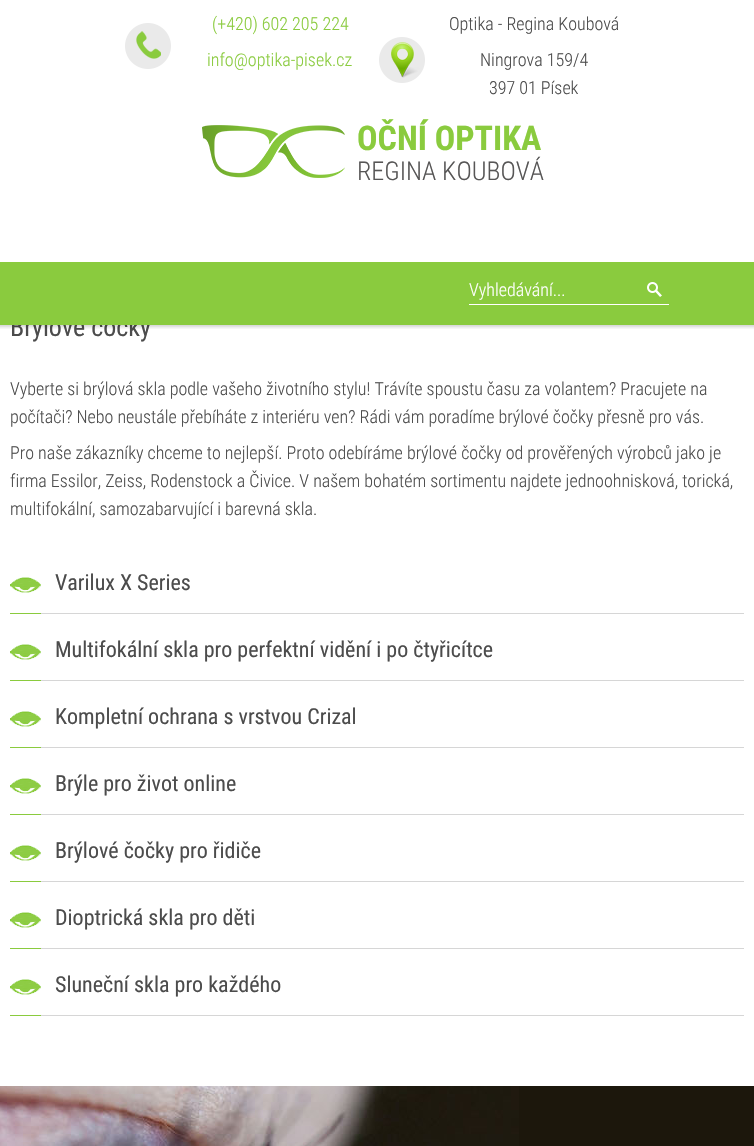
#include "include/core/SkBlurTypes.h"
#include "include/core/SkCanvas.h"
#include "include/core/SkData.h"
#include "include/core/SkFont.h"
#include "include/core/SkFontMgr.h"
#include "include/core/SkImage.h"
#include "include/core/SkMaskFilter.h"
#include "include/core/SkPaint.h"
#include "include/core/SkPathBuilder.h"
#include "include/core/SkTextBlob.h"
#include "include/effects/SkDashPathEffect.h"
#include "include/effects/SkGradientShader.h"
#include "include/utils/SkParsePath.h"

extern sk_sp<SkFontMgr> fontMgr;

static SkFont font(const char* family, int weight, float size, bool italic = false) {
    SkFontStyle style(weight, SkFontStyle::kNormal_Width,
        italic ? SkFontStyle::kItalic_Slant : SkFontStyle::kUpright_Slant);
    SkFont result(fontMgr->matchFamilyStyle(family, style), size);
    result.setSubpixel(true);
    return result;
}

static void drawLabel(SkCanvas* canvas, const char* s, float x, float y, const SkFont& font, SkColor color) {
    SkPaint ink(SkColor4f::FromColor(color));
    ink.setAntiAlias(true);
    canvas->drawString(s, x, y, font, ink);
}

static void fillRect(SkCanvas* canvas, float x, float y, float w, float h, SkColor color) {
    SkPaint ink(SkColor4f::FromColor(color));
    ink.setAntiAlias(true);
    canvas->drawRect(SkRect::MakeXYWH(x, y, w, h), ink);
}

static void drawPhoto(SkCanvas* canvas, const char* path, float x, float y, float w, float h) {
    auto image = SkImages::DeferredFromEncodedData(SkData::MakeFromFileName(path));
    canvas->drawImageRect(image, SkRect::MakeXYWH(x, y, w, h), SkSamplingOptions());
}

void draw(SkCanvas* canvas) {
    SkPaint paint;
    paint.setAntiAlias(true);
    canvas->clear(0xFFFFFFFF);
    drawPhoto(canvas, "assets/img1.png", 125, 23, 46, 46);
    SkFont font1 = font("Roboto Condensed", 300, 18);
    drawLabel(canvas, "(+420) 602 205 224", 212, 30, font1, 0xFF8ACB3E);
    drawLabel(canvas, "info@optika-pisek.cz", 207, 66, font1, 0xFF8ACB3E);
    drawPhoto(canvas, "assets/img2.png", 379, 37, 46, 46);
    drawLabel(canvas, "Optika - Regina Koubová", 449, 30, font1, 0xFF4C4C4C);
    drawLabel(canvas, "Ningrova 159/4", 480, 66, font1, 0xFF4C4C4C);
    drawLabel(canvas, "397 01 Písek", 489, 94, font1, 0xFF4C4C4C);
    drawPhoto(canvas, "assets/img3.png", 202, 125, 143, 53);
    SkFont font2 = font("Roboto Condensed", 700, 34);
    drawLabel(canvas, "OČNÍ OPTIKA", 357, 150, font2, 0xFF8ACB3E);
    SkFont font3 = font("Roboto Condensed", 300, 26);
    drawLabel(canvas, "REGINA KOUBOVÁ", 357, 180, font3, 0xFF575656);
    SkFont font4 = font("Roboto Condensed", 400, 26);
    drawLabel(canvas, "Brýlové čočky", 10, 336, font4, 0xFF4C4C4C);
    fillRect(canvas, 0, 262, 754, 63, 0xFF8ACB3E);
    fillRect(canvas, 469, 304, 200, 1, 0xFFFFFFFF);
    drawLabel(canvas, "Vyhledávání...", 469, 296, font1, 0xFFFFFFFF);
    drawPhoto(canvas, "assets/img4.png", 647, 282, 15, 15);
    drawPhoto(canvas, "assets/img5.png", 0, 325, 754, 4);
    drawLabel(canvas, "Vyberte si brýlová skla podle vašeho životního stylu! Trávíte spoustu času za volantem? Pracujete na", 10, 395, font1, 0xFF4C4C4C);
    drawLabel(canvas, "počítači? Nebo neustále přebíháte z interiéru ven? Rádi vám poradíme brýlové čočky přesně pro vás.", 10, 423, font1, 0xFF4C4C4C);
    drawLabel(canvas, "Pro naše zákazníky chceme to nejlepší. Proto odebíráme brýlové čočky od prověřených výrobců jako je", 10, 459, font1, 0xFF4C4C4C);
    drawLabel(canvas, "firma Essilor, Zeiss, Rodenstock a Čivice. V našem bohatém sortimentu najdete jednoohnisková, torická,", 10, 487, font1, 0xFF4C4C4C);
    drawLabel(canvas, "multifokální, samozabarvující i barevná skla.", 10, 515, font1, 0xFF4C4C4C);
    drawPhoto(canvas, "assets/img6.png", 10, 613, 734, 1);
    drawPhoto(canvas, "assets/img7.png", 10, 577, 31, 16);
    SkFont font5 = font("Roboto Condensed", 400, 22);
    drawLabel(canvas, "Varilux X Series", 55, 590, font5, 0xFF4C4C4C);
    drawPhoto(canvas, "assets/img6.png", 10, 680, 734, 1);
    drawPhoto(canvas, "assets/img7.png", 10, 644, 31, 16);
    drawLabel(canvas, "Multifokální skla pro perfektní vidění i po čtyřicítce", 55, 657, font5, 0xFF4C4C4C);
    drawPhoto(canvas, "assets/img6.png", 10, 747, 734, 1);
    drawPhoto(canvas, "assets/img7.png", 10, 711, 31, 16);
    drawLabel(canvas, "Kompletní ochrana s vrstvou Crizal", 55, 724, font5, 0xFF4C4C4C);
    drawPhoto(canvas, "assets/img6.png", 10, 814, 734, 1);
    drawPhoto(canvas, "assets/img7.png", 10, 778, 31, 16);
    drawLabel(canvas, "Brýle pro život online", 55, 791, font5, 0xFF4C4C4C);
    drawPhoto(canvas, "assets/img6.png", 10, 881, 734, 1);
    drawPhoto(canvas, "assets/img7.png", 10, 845, 31, 16);
    drawLabel(canvas, "Brýlové čočky pro řidiče", 55, 858, font5, 0xFF4C4C4C);
    drawPhoto(canvas, "assets/img6.png", 10, 948, 734, 1);
    drawPhoto(canvas, "assets/img7.png", 10, 912, 31, 16);
    drawLabel(canvas, "Dioptrická skla pro děti", 55, 925, font5, 0xFF4C4C4C);
    drawPhoto(canvas, "assets/img6.png", 10, 1015, 734, 1);
    drawPhoto(canvas, "assets/img7.png", 10, 979, 31, 16);
    drawLabel(canvas, "Sluneční skla pro každého", 55, 992, font5, 0xFF4C4C4C);
    fillRect(canvas, 519, 1086, 235, 60, 0xFF1C170C);
    drawPhoto(canvas, "assets/img8.png", 0, 1086, 519, 60);
}
